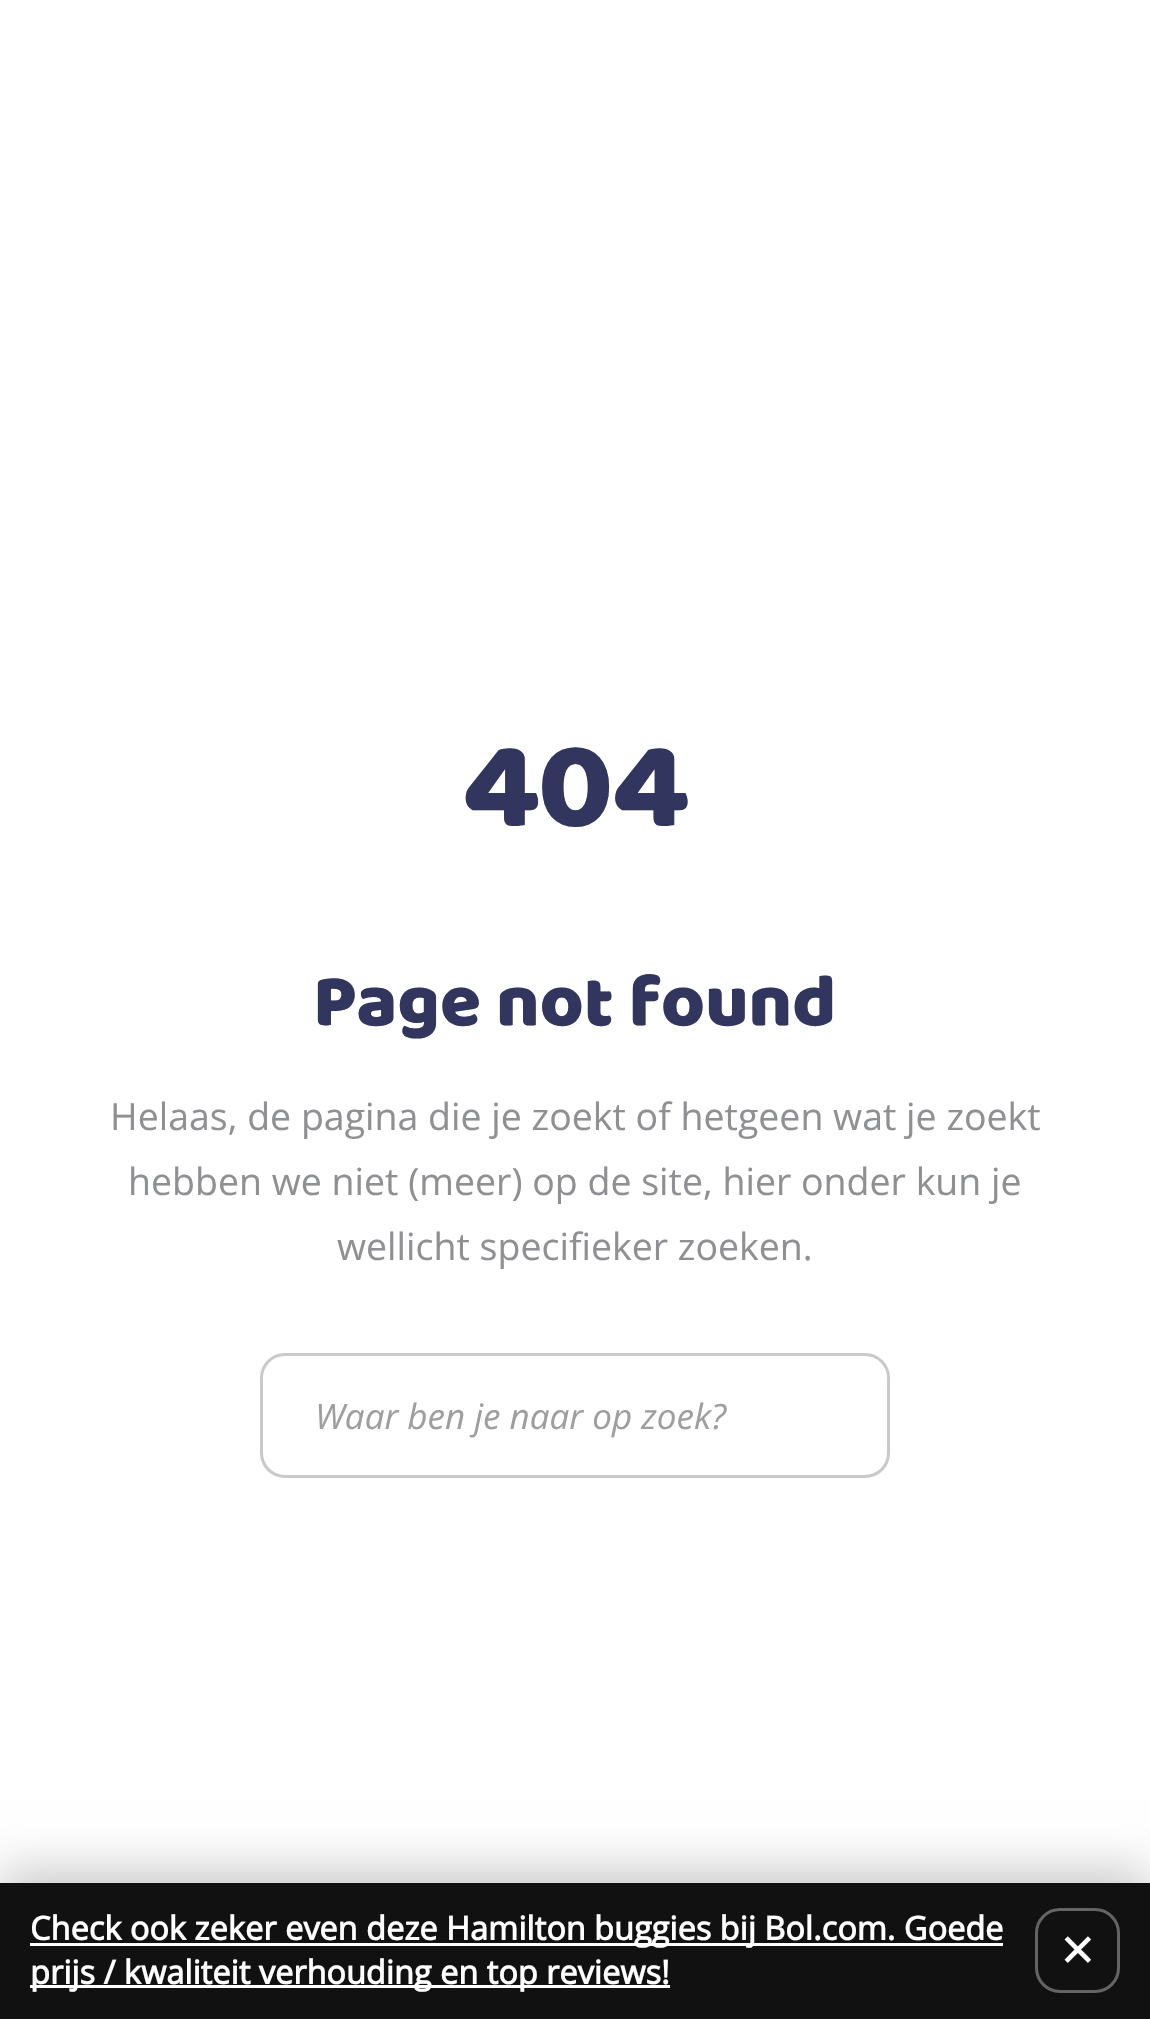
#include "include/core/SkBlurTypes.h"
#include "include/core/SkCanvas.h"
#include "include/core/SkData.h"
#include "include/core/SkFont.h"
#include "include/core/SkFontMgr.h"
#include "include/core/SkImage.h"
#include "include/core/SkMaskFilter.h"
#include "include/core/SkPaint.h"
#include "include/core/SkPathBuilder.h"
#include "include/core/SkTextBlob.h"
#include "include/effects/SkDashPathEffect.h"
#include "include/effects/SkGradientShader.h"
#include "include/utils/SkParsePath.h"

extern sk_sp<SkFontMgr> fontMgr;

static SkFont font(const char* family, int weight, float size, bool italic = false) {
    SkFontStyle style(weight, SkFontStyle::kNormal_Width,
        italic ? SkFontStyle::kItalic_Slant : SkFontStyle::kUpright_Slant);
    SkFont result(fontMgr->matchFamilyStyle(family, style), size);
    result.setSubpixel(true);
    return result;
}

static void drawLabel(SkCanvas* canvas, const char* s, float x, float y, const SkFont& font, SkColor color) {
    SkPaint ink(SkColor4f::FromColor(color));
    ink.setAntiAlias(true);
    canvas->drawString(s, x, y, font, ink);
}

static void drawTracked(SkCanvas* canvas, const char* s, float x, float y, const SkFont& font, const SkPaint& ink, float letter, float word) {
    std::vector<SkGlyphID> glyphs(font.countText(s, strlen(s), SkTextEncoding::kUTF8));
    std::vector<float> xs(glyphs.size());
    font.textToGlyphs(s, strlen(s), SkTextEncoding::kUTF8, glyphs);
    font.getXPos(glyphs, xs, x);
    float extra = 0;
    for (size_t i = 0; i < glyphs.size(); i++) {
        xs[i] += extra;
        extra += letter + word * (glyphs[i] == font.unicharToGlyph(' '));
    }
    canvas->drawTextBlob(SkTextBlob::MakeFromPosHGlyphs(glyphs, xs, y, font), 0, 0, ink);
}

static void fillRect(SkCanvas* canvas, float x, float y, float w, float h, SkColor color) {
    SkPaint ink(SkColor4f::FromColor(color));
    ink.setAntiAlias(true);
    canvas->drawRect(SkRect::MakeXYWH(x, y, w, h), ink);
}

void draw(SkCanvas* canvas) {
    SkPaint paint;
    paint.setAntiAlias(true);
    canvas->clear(0xFFFFFFFF);
    SkFont font1 = font("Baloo", 400, 125);
    paint.setColor(0xFF32355D);
    drawTracked(canvas, "404", 463, 825, font1, paint, -1, 0);
    SkFont font2 = font("Baloo", 400, 75);
    drawLabel(canvas, "Page not found", 313, 1025, font2, 0xFF32355D);
    SkFont font3 = font("Open Sans", 400, 37.5f);
    drawLabel(canvas, "Helaas, de pagina die je zoekt of hetgeen wat je zoekt", 110, 1130, font3, 0xFF8F9093);
    drawLabel(canvas, "hebben we niet (meer) op de site, hier onder kun je", 128, 1195, font3, 0xFF8F9093);
    drawLabel(canvas, "wellicht specifieker zoeken.", 337, 1260, font3, 0xFF8F9093);
    paint.setStroke(true);
    paint.setStrokeWidth(3);
    paint.setColor(0xFFC9C9C9);
    canvas->drawRoundRect(SkRect::MakeXYWH(261.5f, 1354.5f, 627, 122), 23.5f, 23.5f, paint);
    SkFont font4 = font("Open Sans", 400, 35, true);
    drawLabel(canvas, "Waar ben je naar op zoek?", 315, 1429, font4, 0xFF9F9E9E);
    paint.setStroke(false);
    paint.setColor(0x33000000);
    paint.setMaskFilter(SkMaskFilter::MakeBlur(kNormal_SkBlurStyle, 22.5f));
    canvas->drawRect(SkRect::MakeXYWH(0, 1868, 1150, 137), paint);
    paint.setMaskFilter(nullptr);
    fillRect(canvas, 0, 1883, 1150, 136, 0xFF111111);
    fillRect(canvas, 30, 1943, 973, 3, 0xFFFFFFFF);
    SkFont font5 = font("Open Sans", 700, 32.5f);
    drawLabel(canvas, "Check ook zeker even deze Hamilton buggies bij Bol.com. Goede", 30, 1940, font5, 0xFFFFFFFF);
    fillRect(canvas, 30, 1985, 640, 3, 0xFFFFFFFF);
    drawLabel(canvas, "prijs / kwaliteit verhouding en top reviews!", 30, 1984, font5, 0xFFFFFFFF);
    paint.setStroke(true);
    paint.setColor(0xFF646464);
    canvas->drawRoundRect(SkRect::MakeXYWH(1036.5f, 1909.5f, 82, 82), 23.5f, 23.5f, paint);
    SkFont font6 = font("DejaVu Sans", 400, 45);
    drawLabel(canvas, "✕", 1059, 1966, font6, 0xFFFFFFFF);
}
